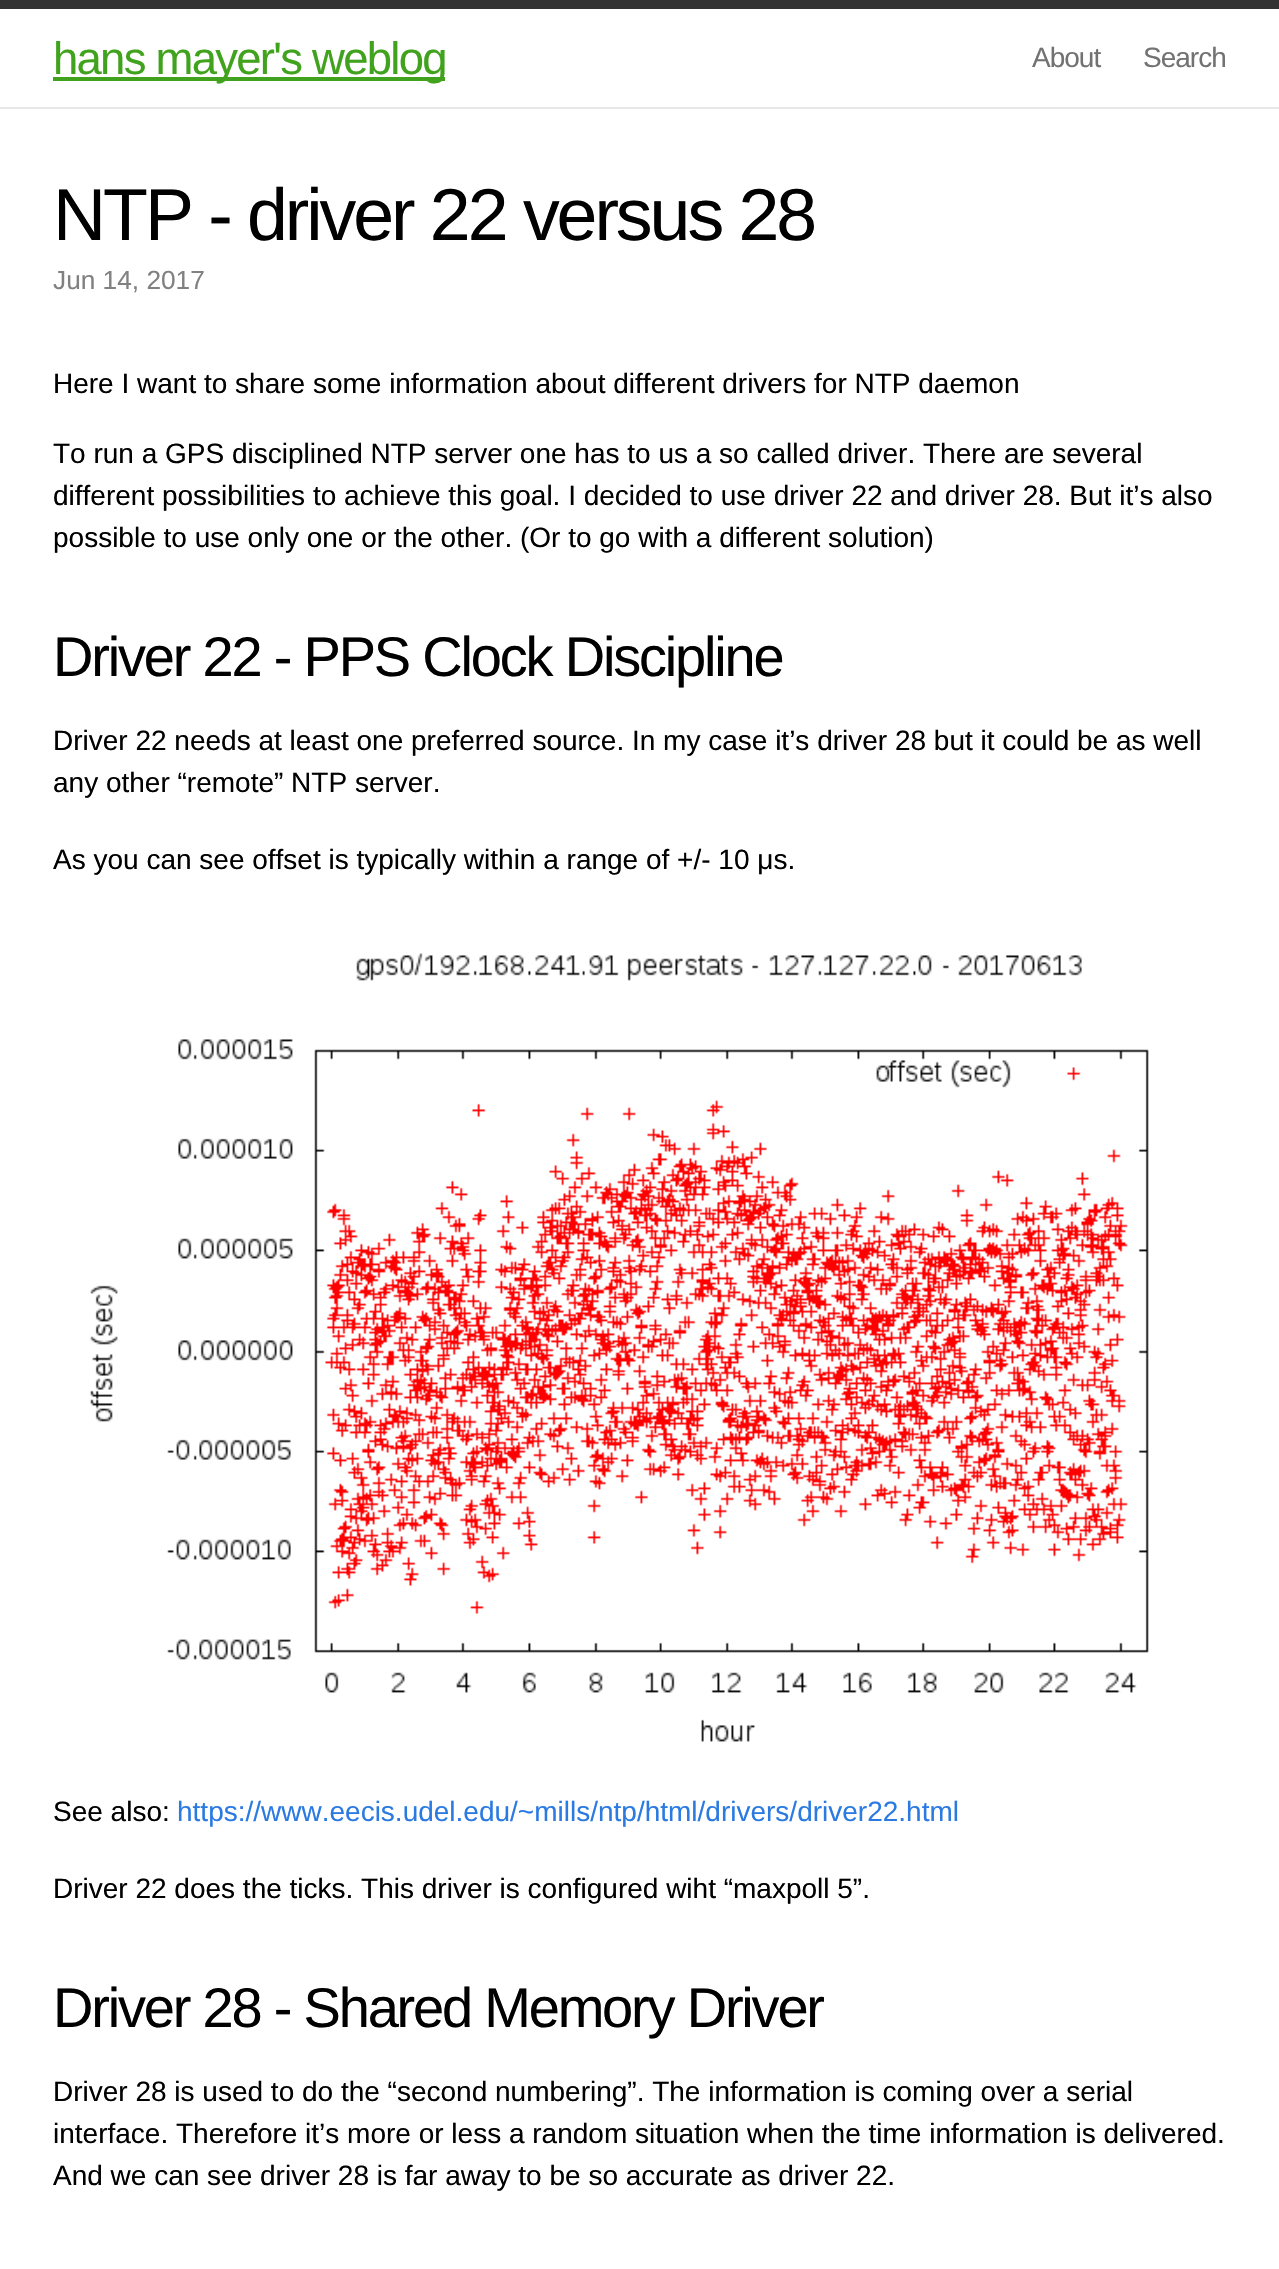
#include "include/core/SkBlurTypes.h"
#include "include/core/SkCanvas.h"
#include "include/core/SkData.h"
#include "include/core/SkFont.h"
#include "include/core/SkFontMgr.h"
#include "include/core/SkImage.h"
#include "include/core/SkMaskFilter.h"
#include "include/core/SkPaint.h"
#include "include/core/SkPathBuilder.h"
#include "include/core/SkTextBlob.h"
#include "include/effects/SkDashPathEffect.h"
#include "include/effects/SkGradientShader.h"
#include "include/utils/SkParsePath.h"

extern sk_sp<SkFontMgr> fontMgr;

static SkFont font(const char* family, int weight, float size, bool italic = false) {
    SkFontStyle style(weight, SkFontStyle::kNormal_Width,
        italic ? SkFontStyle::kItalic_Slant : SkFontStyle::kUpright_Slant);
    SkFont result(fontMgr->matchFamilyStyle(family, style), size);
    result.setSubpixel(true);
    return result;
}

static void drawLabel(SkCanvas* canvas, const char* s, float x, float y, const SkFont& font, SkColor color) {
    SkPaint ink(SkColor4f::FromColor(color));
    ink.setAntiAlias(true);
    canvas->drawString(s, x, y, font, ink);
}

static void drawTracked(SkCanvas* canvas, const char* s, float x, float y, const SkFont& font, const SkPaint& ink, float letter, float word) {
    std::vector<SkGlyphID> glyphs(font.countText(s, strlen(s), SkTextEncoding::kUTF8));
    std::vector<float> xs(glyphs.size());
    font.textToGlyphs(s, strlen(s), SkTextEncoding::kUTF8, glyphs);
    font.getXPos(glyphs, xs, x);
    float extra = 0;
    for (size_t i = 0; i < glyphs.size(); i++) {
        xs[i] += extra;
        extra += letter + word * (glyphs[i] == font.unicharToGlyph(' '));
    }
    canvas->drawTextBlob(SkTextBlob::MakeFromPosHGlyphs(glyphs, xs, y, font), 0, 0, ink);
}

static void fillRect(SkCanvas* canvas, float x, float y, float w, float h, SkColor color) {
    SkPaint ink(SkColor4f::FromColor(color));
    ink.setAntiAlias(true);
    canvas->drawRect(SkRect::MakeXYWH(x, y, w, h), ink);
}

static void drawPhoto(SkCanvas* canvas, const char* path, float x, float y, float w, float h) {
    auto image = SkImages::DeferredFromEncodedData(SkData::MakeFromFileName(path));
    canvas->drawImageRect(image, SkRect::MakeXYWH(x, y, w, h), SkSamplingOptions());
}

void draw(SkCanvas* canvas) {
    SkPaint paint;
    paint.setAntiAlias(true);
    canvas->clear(0xFFFFFFFF);
    fillRect(canvas, 0, 0, 1279, 9, 0xFF333333);
    fillRect(canvas, 0, 107, 1279, 2, 0xFFE8E8E8);
    fillRect(canvas, 53, 77, 392, 4, 0xFF41A31D);
    SkFont font1 = font("Liberation Sans", 400, 45.5f);
    paint.setColor(0xFF41A31D);
    drawTracked(canvas, "hans mayer's weblog", 53, 74, font1, paint, -1.75f, 0);
    SkFont font2 = font("Liberation Sans", 400, 28);
    paint.setColor(0xFF727272);
    drawTracked(canvas, "About", 1032, 67, font2, paint, -1, 0);
    drawTracked(canvas, "Search", 1143, 67, font2, paint, -1, 0);
    SkFont font3 = font("Liberation Sans", 400, 73.5f);
    paint.setColor(0xFF000000);
    drawTracked(canvas, "NTP - driver 22 versus 28", 53, 240, font3, paint, -3.05f, 0);
    SkFont font4 = font("Liberation Sans", 400, 26.25f);
    drawLabel(canvas, "Jun 14, 2017", 53, 289, font4, 0xFF818181);
    drawLabel(canvas, "Here I want to share some information about different drivers for NTP daemon", 53, 393, font2, 0xFF000000);
    drawLabel(canvas, "To run a GPS disciplined NTP server one has to us a so called driver. There are several", 53, 463, font2, 0xFF000000);
    drawLabel(canvas, "different possibilities to achieve this goal. I decided to use driver 22 and driver 28. But it’s also", 53, 505, font2, 0xFF000000);
    drawLabel(canvas, "possible to use only one or the other. (Or to go with a different solution)", 53, 547, font2, 0xFF000000);
    SkFont font5 = font("Liberation Sans", 400, 56);
    drawTracked(canvas, "Driver 22 - PPS Clock Discipline", 53, 676, font5, paint, -2.2f, 0);
    drawLabel(canvas, "Driver 22 needs at least one preferred source. In my case it’s driver 28 but it could be as well", 53, 750, font2, 0xFF000000);
    drawLabel(canvas, "any other “remote” NTP server.", 53, 792, font2, 0xFF000000);
    drawLabel(canvas, "As you can see offset is typically within a range of +/- 10 μs.", 53, 869, font2, 0xFF000000);
    drawPhoto(canvas, "assets/img1.png", 90, 953, 1059, 789);
    drawLabel(canvas, "See also:", 53, 1821, font2, 0xFF000000);
    drawLabel(canvas, "https://www.eecis.udel.edu/~mills/ntp/html/drivers/driver22.html", 177, 1821, font2, 0xFF2A7AE2);
    drawLabel(canvas, "Driver 22 does the ticks. This driver is configured wiht “maxpoll 5”.", 53, 1898, font2, 0xFF000000);
    drawTracked(canvas, "Driver 28 - Shared Memory Driver", 53, 2027, font5, paint, -2.2f, 0);
    drawLabel(canvas, "Driver 28 is used to do the “second numbering”. The information is coming over a serial", 53, 2101, font2, 0xFF000000);
    drawLabel(canvas, "interface. Therefore it’s more or less a random situation when the time information is delivered.", 53, 2143, font2, 0xFF000000);
    drawLabel(canvas, "And we can see driver 28 is far away to be so accurate as driver 22.", 53, 2185, font2, 0xFF000000);
}
